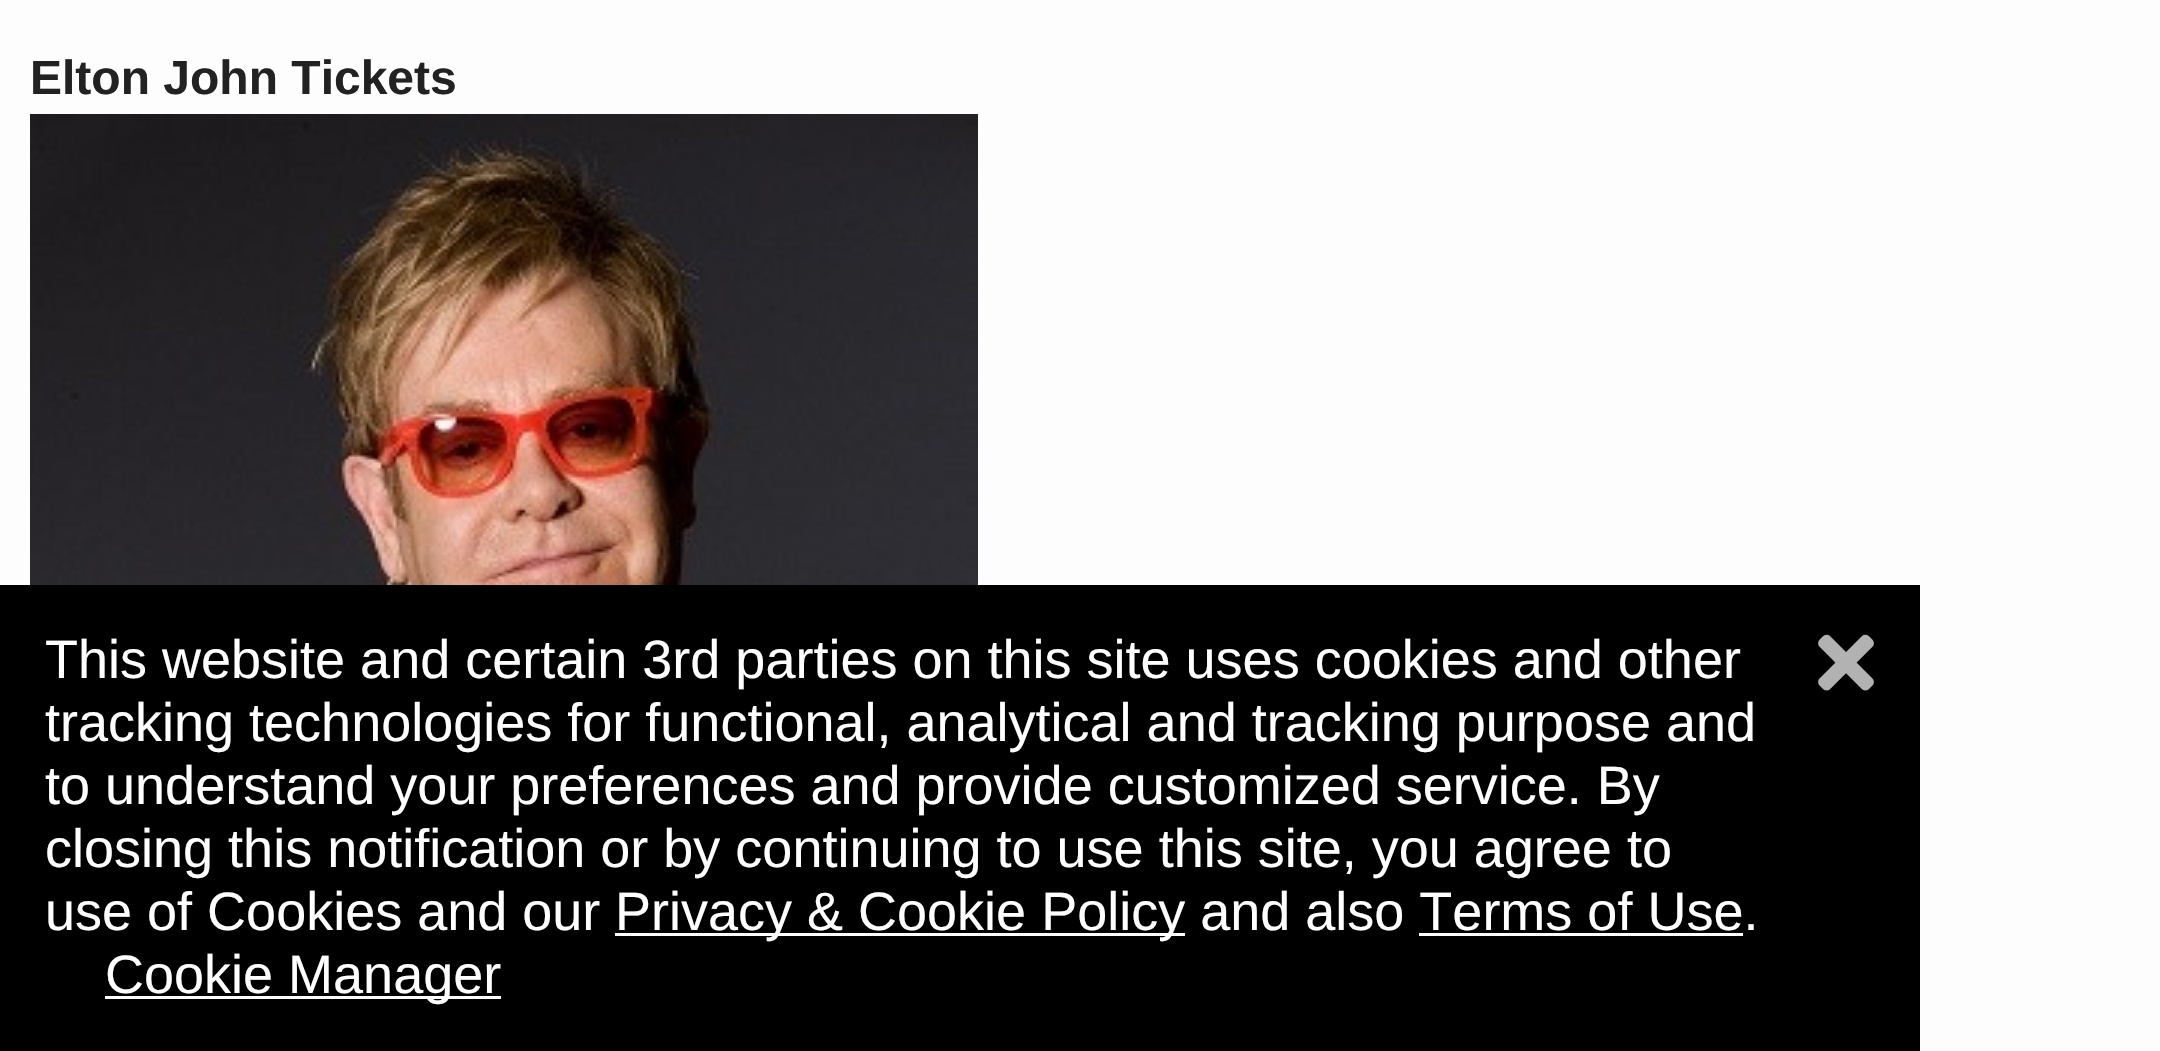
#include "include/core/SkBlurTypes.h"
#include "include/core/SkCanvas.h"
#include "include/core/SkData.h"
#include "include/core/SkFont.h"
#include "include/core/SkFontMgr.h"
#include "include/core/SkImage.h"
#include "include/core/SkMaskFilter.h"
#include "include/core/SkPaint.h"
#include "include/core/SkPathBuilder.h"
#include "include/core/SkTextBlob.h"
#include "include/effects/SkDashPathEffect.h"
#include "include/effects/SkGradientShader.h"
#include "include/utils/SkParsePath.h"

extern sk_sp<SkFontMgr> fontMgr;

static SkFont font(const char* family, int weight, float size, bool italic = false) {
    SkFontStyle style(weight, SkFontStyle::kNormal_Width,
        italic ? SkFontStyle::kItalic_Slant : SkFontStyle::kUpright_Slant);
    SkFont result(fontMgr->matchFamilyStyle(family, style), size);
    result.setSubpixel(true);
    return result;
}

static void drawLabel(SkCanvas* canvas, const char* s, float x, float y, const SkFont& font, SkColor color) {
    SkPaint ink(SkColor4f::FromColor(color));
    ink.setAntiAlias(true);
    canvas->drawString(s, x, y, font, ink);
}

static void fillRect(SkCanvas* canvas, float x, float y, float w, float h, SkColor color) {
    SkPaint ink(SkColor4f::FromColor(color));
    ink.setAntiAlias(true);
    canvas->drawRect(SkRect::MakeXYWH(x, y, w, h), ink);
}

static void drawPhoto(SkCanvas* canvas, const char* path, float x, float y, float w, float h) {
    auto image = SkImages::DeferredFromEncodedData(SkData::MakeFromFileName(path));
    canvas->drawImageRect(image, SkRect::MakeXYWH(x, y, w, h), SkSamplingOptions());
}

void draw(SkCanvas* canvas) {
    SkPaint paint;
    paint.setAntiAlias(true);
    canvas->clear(0xFFFDFDFD);
    SkFont font1 = font("Liberation Sans", 700, 48);
    drawLabel(canvas, "Elton John Tickets", 30, 94, font1, 0xFF222222);
    drawPhoto(canvas, "assets/img1.png", 30, 114, 948, 471);
    fillRect(canvas, 0, 585, 1920, 466, 0xFF000000);
    SkFont font2 = font("Liberation Sans", 400, 54);
    drawLabel(canvas, "This website and certain 3rd parties on this site uses cookies and other", 45, 678, font2, 0xFFFFFFFF);
    drawPhoto(canvas, "assets/img2.png", 1818, 634, 56, 57);
    drawLabel(canvas, "tracking technologies for functional, analytical and tracking purpose and", 45, 741, font2, 0xFFFFFFFF);
    drawLabel(canvas, "to understand your preferences and provide customized service. By", 45, 804, font2, 0xFFFFFFFF);
    drawLabel(canvas, "closing this notification or by continuing to use this site, you agree to", 45, 867, font2, 0xFFFFFFFF);
    drawLabel(canvas, "use of Cookies and our", 45, 930, font2, 0xFFFFFFFF);
    fillRect(canvas, 615, 933, 570, 3, 0xFFFFFFFF);
    drawLabel(canvas, "Privacy & Cookie Policy and also Terms of Use.", 615, 930, font2, 0xFFFFFFFF);
    fillRect(canvas, 1419, 933, 324, 3, 0xFFFFFFFF);
    fillRect(canvas, 105, 996, 396, 3, 0xFFFFFFFF);
    drawLabel(canvas, "Cookie Manager", 105, 993, font2, 0xFFFFFFFF);
}
